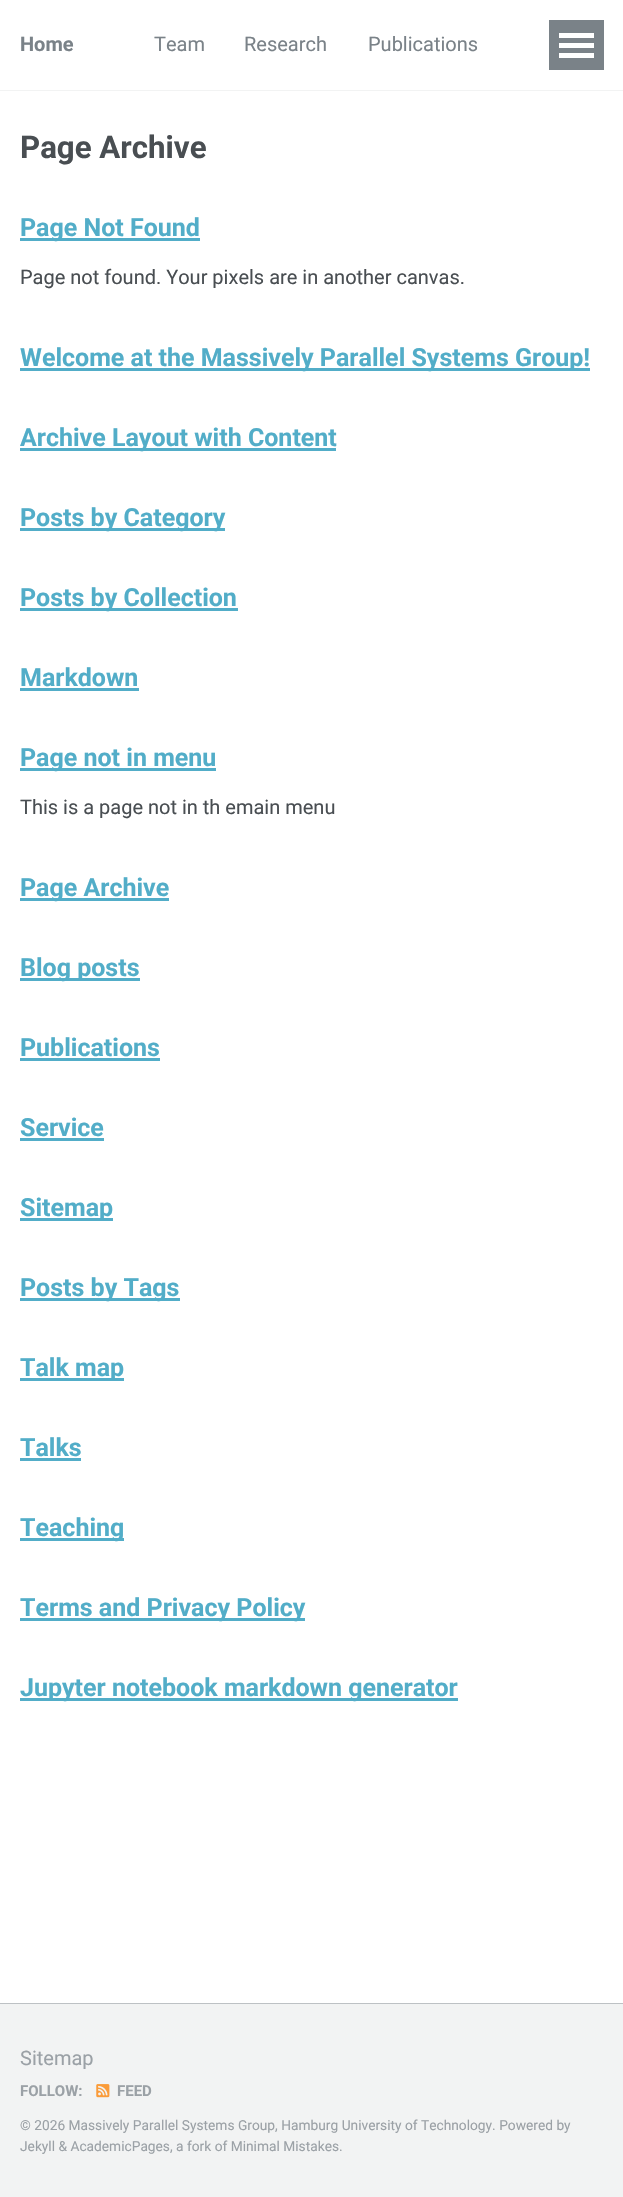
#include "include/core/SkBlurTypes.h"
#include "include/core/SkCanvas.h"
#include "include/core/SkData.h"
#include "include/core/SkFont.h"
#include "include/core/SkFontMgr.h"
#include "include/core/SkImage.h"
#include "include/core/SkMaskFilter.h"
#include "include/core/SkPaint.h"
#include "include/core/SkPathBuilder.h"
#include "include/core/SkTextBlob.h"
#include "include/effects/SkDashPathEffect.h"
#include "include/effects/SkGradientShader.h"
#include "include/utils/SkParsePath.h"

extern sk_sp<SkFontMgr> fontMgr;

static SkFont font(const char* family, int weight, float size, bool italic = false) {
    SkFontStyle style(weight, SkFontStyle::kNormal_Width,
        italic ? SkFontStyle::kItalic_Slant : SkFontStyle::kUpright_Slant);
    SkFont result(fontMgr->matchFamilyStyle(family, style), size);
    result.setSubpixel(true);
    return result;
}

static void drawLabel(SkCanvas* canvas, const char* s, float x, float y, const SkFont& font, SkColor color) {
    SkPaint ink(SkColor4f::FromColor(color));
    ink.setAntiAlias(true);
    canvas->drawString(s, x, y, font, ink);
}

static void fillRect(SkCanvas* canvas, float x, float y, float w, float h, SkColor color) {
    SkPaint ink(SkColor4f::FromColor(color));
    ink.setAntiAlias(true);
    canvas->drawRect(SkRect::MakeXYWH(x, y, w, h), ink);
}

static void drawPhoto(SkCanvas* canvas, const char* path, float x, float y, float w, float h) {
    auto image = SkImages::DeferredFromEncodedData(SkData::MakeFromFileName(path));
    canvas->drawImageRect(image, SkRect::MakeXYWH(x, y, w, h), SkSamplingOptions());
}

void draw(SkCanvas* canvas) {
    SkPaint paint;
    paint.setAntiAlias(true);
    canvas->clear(0xFFFFFFFF);
    fillRect(canvas, 0, 90, 623, 1, 0xFFF2F3F3);
    SkFont font1 = font("Roboto", 700, 20);
    drawLabel(canvas, "Home", 20, 51, font1, 0xFF7A8288);
    SkFont font2 = font("Roboto", 400, 20);
    drawLabel(canvas, "Team", 154, 51, font2, 0xFF7A8288);
    drawLabel(canvas, "Research", 244, 51, font2, 0xFF7A8288);
    drawLabel(canvas, "Publications", 368, 51, font2, 0xFF7A8288);
    fillRect(canvas, 549, 20, 55, 50, 0xFF7A8288);
    fillRect(canvas, 559, 43, 35, 5, 0xFFFFFFFF);
    fillRect(canvas, 559, 33, 35, 5, 0xFFFFFFFF);
    fillRect(canvas, 559, 53, 35, 5, 0xFFFFFFFF);
    SkFont font3 = font("Roboto", 700, 31.25f);
    drawLabel(canvas, "Page Archive", 20, 158, font3, 0xFF494E52);
    fillRect(canvas, 20, 238, 180, 3, 0xFF52ADC8);
    SkFont font4 = font("Roboto", 700, 25);
    drawLabel(canvas, "Page Not Found", 20, 236, font4, 0xFF52ADC8);
    drawLabel(canvas, "Page not found. Your pixels are in another canvas.", 20, 284, font2, 0xFF494E52);
    fillRect(canvas, 20, 368, 570, 3, 0xFF52ADC8);
    drawLabel(canvas, "Welcome at the Massively Parallel Systems Group!", 20, 366, font4, 0xFF52ADC8);
    fillRect(canvas, 20, 448, 316, 3, 0xFF52ADC8);
    drawLabel(canvas, "Archive Layout with Content", 20, 446, font4, 0xFF52ADC8);
    fillRect(canvas, 20, 528, 205, 3, 0xFF52ADC8);
    drawLabel(canvas, "Posts by Category", 20, 526, font4, 0xFF52ADC8);
    fillRect(canvas, 20, 608, 218, 3, 0xFF52ADC8);
    drawLabel(canvas, "Posts by Collection", 20, 606, font4, 0xFF52ADC8);
    drawLabel(canvas, "Markdown", 20, 686, font4, 0xFF52ADC8);
    fillRect(canvas, 20, 688, 119, 3, 0xFF52ADC8);
    fillRect(canvas, 20, 768, 196, 3, 0xFF52ADC8);
    drawLabel(canvas, "Page not in menu", 20, 766, font4, 0xFF52ADC8);
    drawLabel(canvas, "This is a page not in th emain menu", 20, 814, font2, 0xFF494E52);
    fillRect(canvas, 20, 898, 149, 3, 0xFF52ADC8);
    drawLabel(canvas, "Page Archive", 20, 896, font4, 0xFF52ADC8);
    fillRect(canvas, 20, 978, 120, 3, 0xFF52ADC8);
    drawLabel(canvas, "Blog posts", 20, 976, font4, 0xFF52ADC8);
    drawLabel(canvas, "Publications", 20, 1056, font4, 0xFF52ADC8);
    fillRect(canvas, 20, 1058, 140, 3, 0xFF52ADC8);
    drawLabel(canvas, "Service", 20, 1136, font4, 0xFF52ADC8);
    fillRect(canvas, 20, 1138, 84, 3, 0xFF52ADC8);
    fillRect(canvas, 20, 1218, 93, 3, 0xFF52ADC8);
    drawLabel(canvas, "Sitemap", 20, 1216, font4, 0xFF52ADC8);
    fillRect(canvas, 20, 1298, 160, 3, 0xFF52ADC8);
    drawLabel(canvas, "Posts by Tags", 20, 1296, font4, 0xFF52ADC8);
    fillRect(canvas, 20, 1378, 104, 3, 0xFF52ADC8);
    drawLabel(canvas, "Talk map", 20, 1376, font4, 0xFF52ADC8);
    drawLabel(canvas, "Talks", 20, 1456, font4, 0xFF52ADC8);
    fillRect(canvas, 20, 1458, 61, 3, 0xFF52ADC8);
    fillRect(canvas, 20, 1538, 104, 3, 0xFF52ADC8);
    drawLabel(canvas, "Teaching", 20, 1536, font4, 0xFF52ADC8);
    fillRect(canvas, 20, 1618, 285, 3, 0xFF52ADC8);
    drawLabel(canvas, "Terms and Privacy Policy", 20, 1616, font4, 0xFF52ADC8);
    fillRect(canvas, 20, 1698, 438, 3, 0xFF52ADC8);
    drawLabel(canvas, "Jupyter notebook markdown generator", 20, 1696, font4, 0xFF52ADC8);
    fillRect(canvas, 0, 2004, 623, 193, 0xFFF2F3F3);
    fillRect(canvas, 0, 2003, 623, 1, 0xFFBDC1C4);
    drawLabel(canvas, "Sitemap", 20, 2065, font2, 0xFF9BA1A6);
    SkFont font5 = font("Roboto", 700, 15);
    drawLabel(canvas, "FOLLOW:", 20, 2096, font5, 0xFF9BA1A6);
    drawPhoto(canvas, "assets/img1.png", 96, 2084, 14, 14);
    drawLabel(canvas, "FEED", 117, 2096, font5, 0xFF9BA1A6);
    SkFont font6 = font("Roboto", 400, 13.75f);
    drawLabel(canvas, "© 2026 Massively Parallel Systems Group, Hamburg University of Technology. Powered by", 20, 2130, font6, 0xFF9BA1A6);
    drawLabel(canvas, "Jekyll & AcademicPages, a fork of Minimal Mistakes.", 20, 2151, font6, 0xFF9BA1A6);
}
